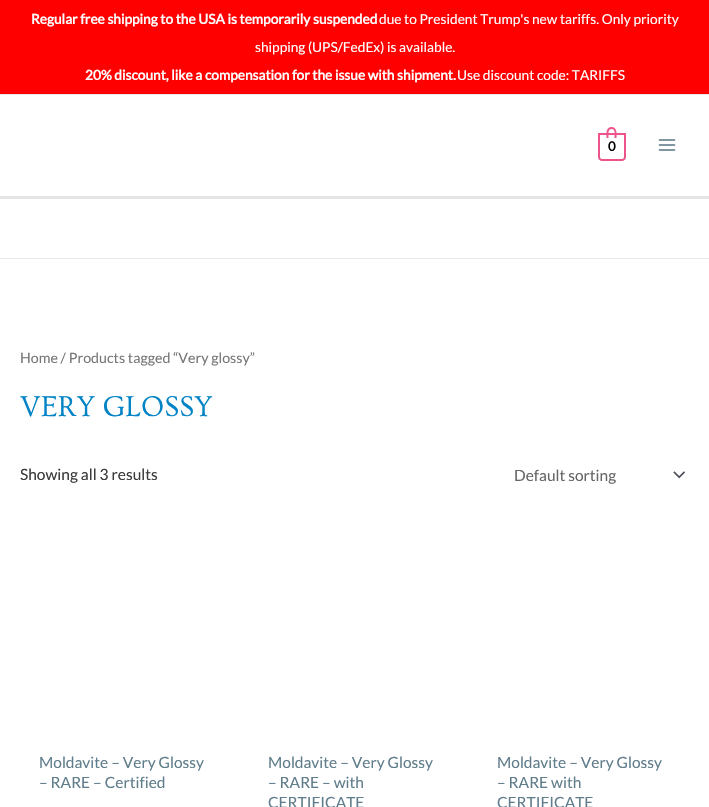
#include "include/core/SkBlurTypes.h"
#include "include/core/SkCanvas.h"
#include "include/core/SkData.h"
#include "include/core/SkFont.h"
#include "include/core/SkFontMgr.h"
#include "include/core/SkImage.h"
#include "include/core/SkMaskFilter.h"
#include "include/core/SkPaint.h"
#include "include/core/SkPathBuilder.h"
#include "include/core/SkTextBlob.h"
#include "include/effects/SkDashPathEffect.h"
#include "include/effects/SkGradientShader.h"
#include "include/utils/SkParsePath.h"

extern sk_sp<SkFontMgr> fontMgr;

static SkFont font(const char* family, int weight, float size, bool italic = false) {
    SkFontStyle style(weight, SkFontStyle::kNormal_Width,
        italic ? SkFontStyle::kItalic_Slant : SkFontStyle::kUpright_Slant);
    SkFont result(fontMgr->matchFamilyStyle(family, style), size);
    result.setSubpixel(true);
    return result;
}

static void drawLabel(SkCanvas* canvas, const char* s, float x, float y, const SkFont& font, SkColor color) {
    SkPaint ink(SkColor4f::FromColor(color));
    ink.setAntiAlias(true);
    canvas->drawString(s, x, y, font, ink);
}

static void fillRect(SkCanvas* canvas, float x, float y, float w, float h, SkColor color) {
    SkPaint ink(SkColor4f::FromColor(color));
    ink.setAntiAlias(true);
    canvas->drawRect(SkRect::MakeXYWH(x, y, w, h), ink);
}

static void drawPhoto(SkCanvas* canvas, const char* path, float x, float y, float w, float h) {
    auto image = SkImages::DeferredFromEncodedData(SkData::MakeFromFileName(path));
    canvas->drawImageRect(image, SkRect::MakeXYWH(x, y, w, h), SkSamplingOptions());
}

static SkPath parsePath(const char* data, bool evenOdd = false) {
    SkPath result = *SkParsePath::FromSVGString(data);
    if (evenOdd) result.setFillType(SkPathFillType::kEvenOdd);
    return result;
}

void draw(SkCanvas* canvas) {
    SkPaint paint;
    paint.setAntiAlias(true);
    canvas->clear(0xFFFFFFFF);
    fillRect(canvas, 0, 0, 709, 94, 0xFFFE0000);
    fillRect(canvas, 0, 94, 709, 1, 0xFFEAEAEA);
    SkFont font1 = font("Lato", 700, 13.7f);
    drawLabel(canvas, "Regular free shipping to the USA is temporarily suspended", 31, 24, font1, 0xFFFFFFFF);
    SkFont font2 = font("Lato", 400, 13.7f);
    drawLabel(canvas, "due to President Trump's new tariffs. Only priority", 379, 24, font2, 0xFFFFFFFF);
    drawLabel(canvas, "shipping (UPS/FedEx) is available.", 255, 52, font2, 0xFFFFFFFF);
    drawLabel(canvas, "20% discount, like a compensation for the issue with shipment.", 85, 80, font1, 0xFFFFFFFF);
    drawLabel(canvas, "Use discount code: TARIFFS", 457, 80, font2, 0xFFFFFFFF);
    fillRect(canvas, 0, 196, 709, 3, 0xFFE5E5E5);
    paint.setStroke(true);
    paint.setStrokeWidth(2);
    paint.setColor(0xFFEC548B);
    canvas->drawPath(parsePath("M599 134H625V157C625 158.5 623.5 160 622 160H602C600.5 160 599 158.5 599 157Z"), paint);
    paint.setStroke(false);
    canvas->drawPath(parsePath("M611.5 127C617.5 127 616.5 134 616.5 138H606.5C606.5 134 605.5 127 611.5 127ZM611.5 129C616 129 614.5 135.5 614.5 138H608.5C608.5 135.5 607.5 129 611.5 129Z", true), paint);
    SkFont font3 = font("Lato", 700, 13);
    drawLabel(canvas, "0", 608, 151, font3, 0xFF000000);
    drawPhoto(canvas, "assets/img1.png", 658, 139, 18, 12);
    fillRect(canvas, 0, 258, 709, 1, 0xFFEAEAEA);
    SkFont font4 = font("Lato", 400, 14.25f);
    drawLabel(canvas, "Home / Products tagged “Very glossy”", 20, 363, font4, 0xFF777777);
    SkFont font5 = font("Ovo", 400, 30);
    drawLabel(canvas, "VERY GLOSSY", 20, 416, font5, 0xFF0183C5);
    SkFont font6 = font("Lato", 400, 15.5f);
    drawLabel(canvas, "Showing all 3 results", 20, 480, font6, 0xFF3A3A3A);
    drawPhoto(canvas, "assets/img2.png", 673, 471, 12, 8);
    drawLabel(canvas, "Default sorting", 514, 481, font6, 0xFF666666);
    drawLabel(canvas, "Moldavite – Very Glossy", 39, 768, font6, 0xFF607D8B);
    drawLabel(canvas, "– RARE – Certified", 39, 788, font6, 0xFF607D8B);
    drawLabel(canvas, "Moldavite – Very Glossy", 268, 768, font6, 0xFF607D8B);
    drawLabel(canvas, "– RARE – with", 268, 788, font6, 0xFF607D8B);
    drawLabel(canvas, "CERTIFICATE", 268, 808, font6, 0xFF607D8B);
    drawLabel(canvas, "Moldavite – Very Glossy", 497, 768, font6, 0xFF607D8B);
    drawLabel(canvas, "– RARE with", 497, 788, font6, 0xFF607D8B);
    drawLabel(canvas, "CERTIFICATE", 497, 808, font6, 0xFF607D8B);
}
